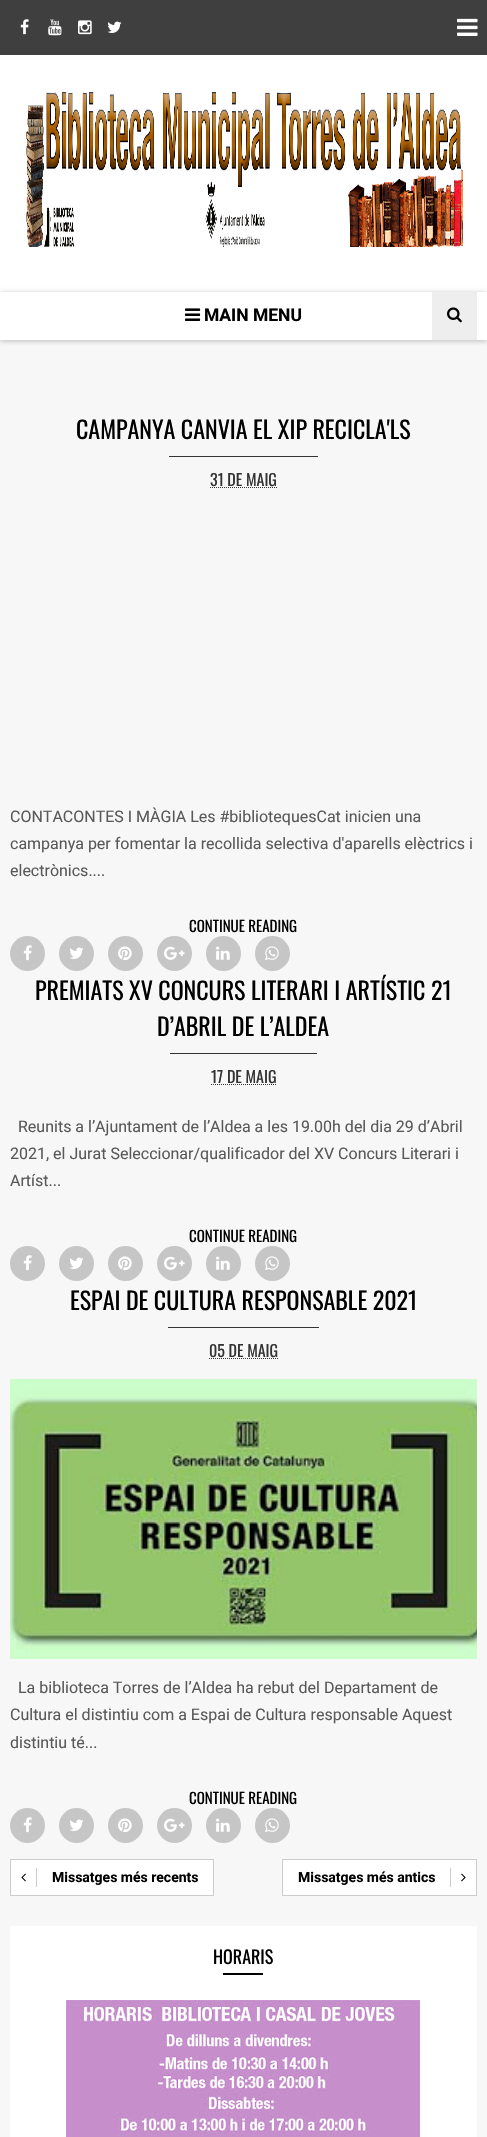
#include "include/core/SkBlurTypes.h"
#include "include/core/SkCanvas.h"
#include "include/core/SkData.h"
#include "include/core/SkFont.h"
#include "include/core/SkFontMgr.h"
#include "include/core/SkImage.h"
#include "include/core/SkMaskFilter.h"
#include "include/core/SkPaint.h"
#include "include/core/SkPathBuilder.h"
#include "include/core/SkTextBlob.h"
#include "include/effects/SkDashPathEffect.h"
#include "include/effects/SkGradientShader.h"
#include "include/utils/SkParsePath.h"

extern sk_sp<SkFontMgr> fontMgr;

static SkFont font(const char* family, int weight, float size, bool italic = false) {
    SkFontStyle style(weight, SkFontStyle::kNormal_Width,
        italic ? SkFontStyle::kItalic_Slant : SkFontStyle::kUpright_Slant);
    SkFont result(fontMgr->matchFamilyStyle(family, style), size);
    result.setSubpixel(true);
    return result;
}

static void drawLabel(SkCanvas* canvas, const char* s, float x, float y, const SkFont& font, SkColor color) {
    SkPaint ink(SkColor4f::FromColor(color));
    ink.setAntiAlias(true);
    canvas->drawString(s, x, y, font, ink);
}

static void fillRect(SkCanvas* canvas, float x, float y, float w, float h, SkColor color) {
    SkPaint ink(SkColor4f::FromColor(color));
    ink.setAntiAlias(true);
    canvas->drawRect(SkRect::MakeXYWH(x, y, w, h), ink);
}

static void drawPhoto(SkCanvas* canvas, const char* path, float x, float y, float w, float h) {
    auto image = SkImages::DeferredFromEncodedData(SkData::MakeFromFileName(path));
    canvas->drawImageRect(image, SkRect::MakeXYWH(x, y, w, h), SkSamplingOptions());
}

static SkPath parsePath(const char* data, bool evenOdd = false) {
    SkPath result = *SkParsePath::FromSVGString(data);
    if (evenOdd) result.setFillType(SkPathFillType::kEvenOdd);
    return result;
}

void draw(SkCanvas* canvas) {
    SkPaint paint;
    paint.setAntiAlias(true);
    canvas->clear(0xFFFFFFFF);
    fillRect(canvas, 0, 0, 487, 55, 0xFF3F3F3F);
    drawPhoto(canvas, "assets/img1.png", 20, 19, 9, 16);
    drawPhoto(canvas, "assets/img2.png", 48, 19, 14, 17);
    drawPhoto(canvas, "assets/img3.png", 78, 20, 14, 15);
    drawPhoto(canvas, "assets/img4.png", 107, 21, 15, 12);
    drawPhoto(canvas, "assets/img5.png", 457, 18, 21, 18);
    drawPhoto(canvas, "assets/img6.png", 26, 92, 437, 155);
    fillRect(canvas, 0, 340, 487, 1797, 0xFFF7F7F7);
    canvas->save();
    canvas->clipPath(parsePath("M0 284H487V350H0ZM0 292H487V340H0Z", true), true);
    paint.setColor(0xFFBABABA);
    paint.setMaskFilter(SkMaskFilter::MakeBlur(kNormal_SkBlurStyle, 2.5f));
    canvas->drawRect(SkRect::MakeXYWH(0, 293, 487, 48), paint);
    paint.setMaskFilter(nullptr);
    canvas->restore();
    drawPhoto(canvas, "assets/img7.png", 185, 308, 16, 13);
    SkFont font1 = font("Roboto", 700, 17.5f);
    drawLabel(canvas, "MAIN MENU", 204, 321, font1, 0xFF000000);
    fillRect(canvas, 432, 292, 45, 48, 0xFFEEEEEE);
    drawPhoto(canvas, "assets/img8.png", 447, 307, 15, 16);
    SkFont font2 = font("Oswald", 400, 24);
    drawLabel(canvas, "CAMPANYA CANVIA EL XIP RECICLA'LS", 76, 439, font2, 0xFF000000);
    fillRect(canvas, 169, 456, 149, 1, 0xFF333333);
    SkFont font3 = font("Oswald", 400, 16);
    drawLabel(canvas, "31 DE MAIG", 210, 486, font3, 0xFF333333);
    paint.setStroke(true);
    paint.setStrokeWidth(1);
    paint.setColor(0xFF333333);
    paint.setPathEffect(SkDashPathEffect::Make({{1, 1}}, 0));
    canvas->drawPath(parsePath("M210 487.5H277"), paint);
    paint.setPathEffect(nullptr);
    SkFont font4 = font("Roboto", 400, 16);
    drawLabel(canvas, "CONTACONTES I MÀGIA Les #bibliotequesCat inicien una", 10, 822, font4, 0xFF595959);
    drawLabel(canvas, "campanya per fomentar la recollida selectiva d'aparells elèctrics i", 10, 849, font4, 0xFF595959);
    drawLabel(canvas, "electrònics....", 10, 876, font4, 0xFF595959);
    SkFont font5 = font("Oswald", 400, 15);
    drawLabel(canvas, "CONTINUE READING", 189, 932, font5, 0xFF000000);
    paint.setStroke(false);
    paint.setColor(0xFFC6C6C6);
    canvas->drawCircle(27.5f, 953.5f, 17.5f, paint);
    drawPhoto(canvas, "assets/img9.png", 23, 945, 9, 16);
    canvas->drawCircle(76.5f, 953.5f, 17.5f, paint);
    drawPhoto(canvas, "assets/img10.png", 69, 947, 15, 12);
    canvas->drawCircle(125.5f, 953.5f, 17.5f, paint);
    drawPhoto(canvas, "assets/img11.png", 118, 946, 14, 15);
    canvas->drawCircle(174.5f, 953.5f, 17.5f, paint);
    drawPhoto(canvas, "assets/img12.png", 164, 946, 21, 14);
    canvas->drawCircle(223.5f, 953.5f, 17.5f, paint);
    drawPhoto(canvas, "assets/img13.png", 216, 946, 14, 14);
    canvas->drawCircle(272.5f, 953.5f, 17.5f, paint);
    drawPhoto(canvas, "assets/img14.png", 265, 946, 14, 14);
    drawLabel(canvas, "PREMIATS XV CONCURS LITERARI I ARTÍSTIC 21", 35, 1000, font2, 0xFF000000);
    drawLabel(canvas, "D’ABRIL DE L’ALDEA", 157, 1036, font2, 0xFF000000);
    fillRect(canvas, 170, 1053, 147, 1, 0xFF333333);
    drawLabel(canvas, "17 DE MAIG", 211, 1083, font3, 0xFF333333);
    paint.setStroke(true);
    paint.setColor(0xFF333333);
    paint.setPathEffect(SkDashPathEffect::Make({{1, 1}}, 0));
    canvas->drawPath(parsePath("M211 1084.5H276"), paint);
    paint.setPathEffect(nullptr);
    drawLabel(canvas, "Reunits a l’Ajuntament de l’Aldea a les 19.00h del dia 29 d’Abril", 18, 1132, font4, 0xFF595959);
    drawLabel(canvas, "2021, el Jurat Seleccionar/qualificador del XV Concurs Literari i", 10, 1159, font4, 0xFF595959);
    drawLabel(canvas, "Artíst...", 10, 1186, font4, 0xFF595959);
    drawLabel(canvas, "CONTINUE READING", 189, 1242, font5, 0xFF000000);
    paint.setStroke(false);
    paint.setColor(0xFFC6C6C6);
    canvas->drawCircle(27.5f, 1263.5f, 17.5f, paint);
    drawPhoto(canvas, "assets/img9.png", 23, 1255, 9, 16);
    canvas->drawCircle(76.5f, 1263.5f, 17.5f, paint);
    drawPhoto(canvas, "assets/img10.png", 69, 1257, 15, 12);
    canvas->drawCircle(125.5f, 1263.5f, 17.5f, paint);
    drawPhoto(canvas, "assets/img11.png", 118, 1256, 14, 15);
    canvas->drawCircle(174.5f, 1263.5f, 17.5f, paint);
    drawPhoto(canvas, "assets/img12.png", 164, 1256, 21, 14);
    canvas->drawCircle(223.5f, 1263.5f, 17.5f, paint);
    drawPhoto(canvas, "assets/img13.png", 216, 1256, 14, 14);
    canvas->drawCircle(272.5f, 1263.5f, 17.5f, paint);
    drawPhoto(canvas, "assets/img14.png", 265, 1256, 14, 14);
    drawLabel(canvas, "ESPAI DE CULTURA RESPONSABLE 2021", 70, 1310, font2, 0xFF000000);
    fillRect(canvas, 168, 1327, 151, 1, 0xFF333333);
    drawLabel(canvas, "05 DE MAIG", 209, 1357, font3, 0xFF333333);
    paint.setStroke(true);
    paint.setColor(0xFF333333);
    paint.setPathEffect(SkDashPathEffect::Make({{1, 1}}, 0));
    canvas->drawPath(parsePath("M209 1358.5H278"), paint);
    paint.setPathEffect(nullptr);
    drawPhoto(canvas, "assets/img15.png", 10, 1379, 467, 280);
    drawLabel(canvas, "La biblioteca Torres de l’Aldea ha rebut del Departament de", 18, 1693, font4, 0xFF595959);
    drawLabel(canvas, "Cultura el distintiu com a Espai de Cultura responsable Aquest", 10, 1720, font4, 0xFF595959);
    drawLabel(canvas, "distintiu té...", 10, 1748, font4, 0xFF595959);
    drawLabel(canvas, "CONTINUE READING", 189, 1804, font5, 0xFF000000);
    paint.setStroke(false);
    paint.setColor(0xFFC6C6C6);
    canvas->drawCircle(27.5f, 1825.5f, 17.5f, paint);
    drawPhoto(canvas, "assets/img9.png", 23, 1817, 9, 16);
    canvas->drawCircle(76.5f, 1825.5f, 17.5f, paint);
    drawPhoto(canvas, "assets/img10.png", 69, 1819, 15, 12);
    canvas->drawCircle(125.5f, 1825.5f, 17.5f, paint);
    drawPhoto(canvas, "assets/img11.png", 118, 1818, 14, 15);
    canvas->drawCircle(174.5f, 1825.5f, 17.5f, paint);
    drawPhoto(canvas, "assets/img12.png", 164, 1818, 21, 14);
    canvas->drawCircle(223.5f, 1825.5f, 17.5f, paint);
    drawPhoto(canvas, "assets/img13.png", 216, 1818, 14, 14);
    canvas->drawCircle(272.5f, 1825.5f, 17.5f, paint);
    drawPhoto(canvas, "assets/img14.png", 265, 1818, 14, 14);
    paint.setColor(0xFFFFFFFF);
    canvas->drawRect(SkRect::MakeXYWH(10.5f, 1859.5f, 203, 36), paint);
    paint.setStroke(true);
    paint.setColor(0xFFCCCCCC);
    canvas->drawRect(SkRect::MakeXYWH(10.5f, 1859.5f, 203, 36), paint);
    fillRect(canvas, 36, 1868, 1, 19, 0xFFCCCCCC);
    drawPhoto(canvas, "assets/img16.png", 21, 1873, 5, 9);
    SkFont font6 = font("Roboto", 700, 14);
    drawLabel(canvas, "Missatges més recents", 52, 1882, font6, 0xFF000000);
    paint.setStroke(false);
    paint.setColor(0xFFFFFFFF);
    canvas->drawRect(SkRect::MakeXYWH(282.5f, 1859.5f, 194, 36), paint);
    paint.setStroke(true);
    paint.setColor(0xFFCCCCCC);
    canvas->drawRect(SkRect::MakeXYWH(282.5f, 1859.5f, 194, 36), paint);
    drawLabel(canvas, "Missatges més antics", 298, 1882, font6, 0xFF000000);
    fillRect(canvas, 450, 1868, 1, 19, 0xFFCCCCCC);
    drawPhoto(canvas, "assets/img17.png", 461, 1873, 5, 9);
    fillRect(canvas, 10, 1926, 467, 211, 0xFFFFFFFF);
    SkFont font7 = font("Oswald", 400, 18);
    drawLabel(canvas, "HORARIS", 213, 1964, font7, 0xFF000000);
    fillRect(canvas, 223, 1973, 40, 2, 0xFF000000);
    drawPhoto(canvas, "assets/img18.png", 66, 2000, 354, 137);
}
